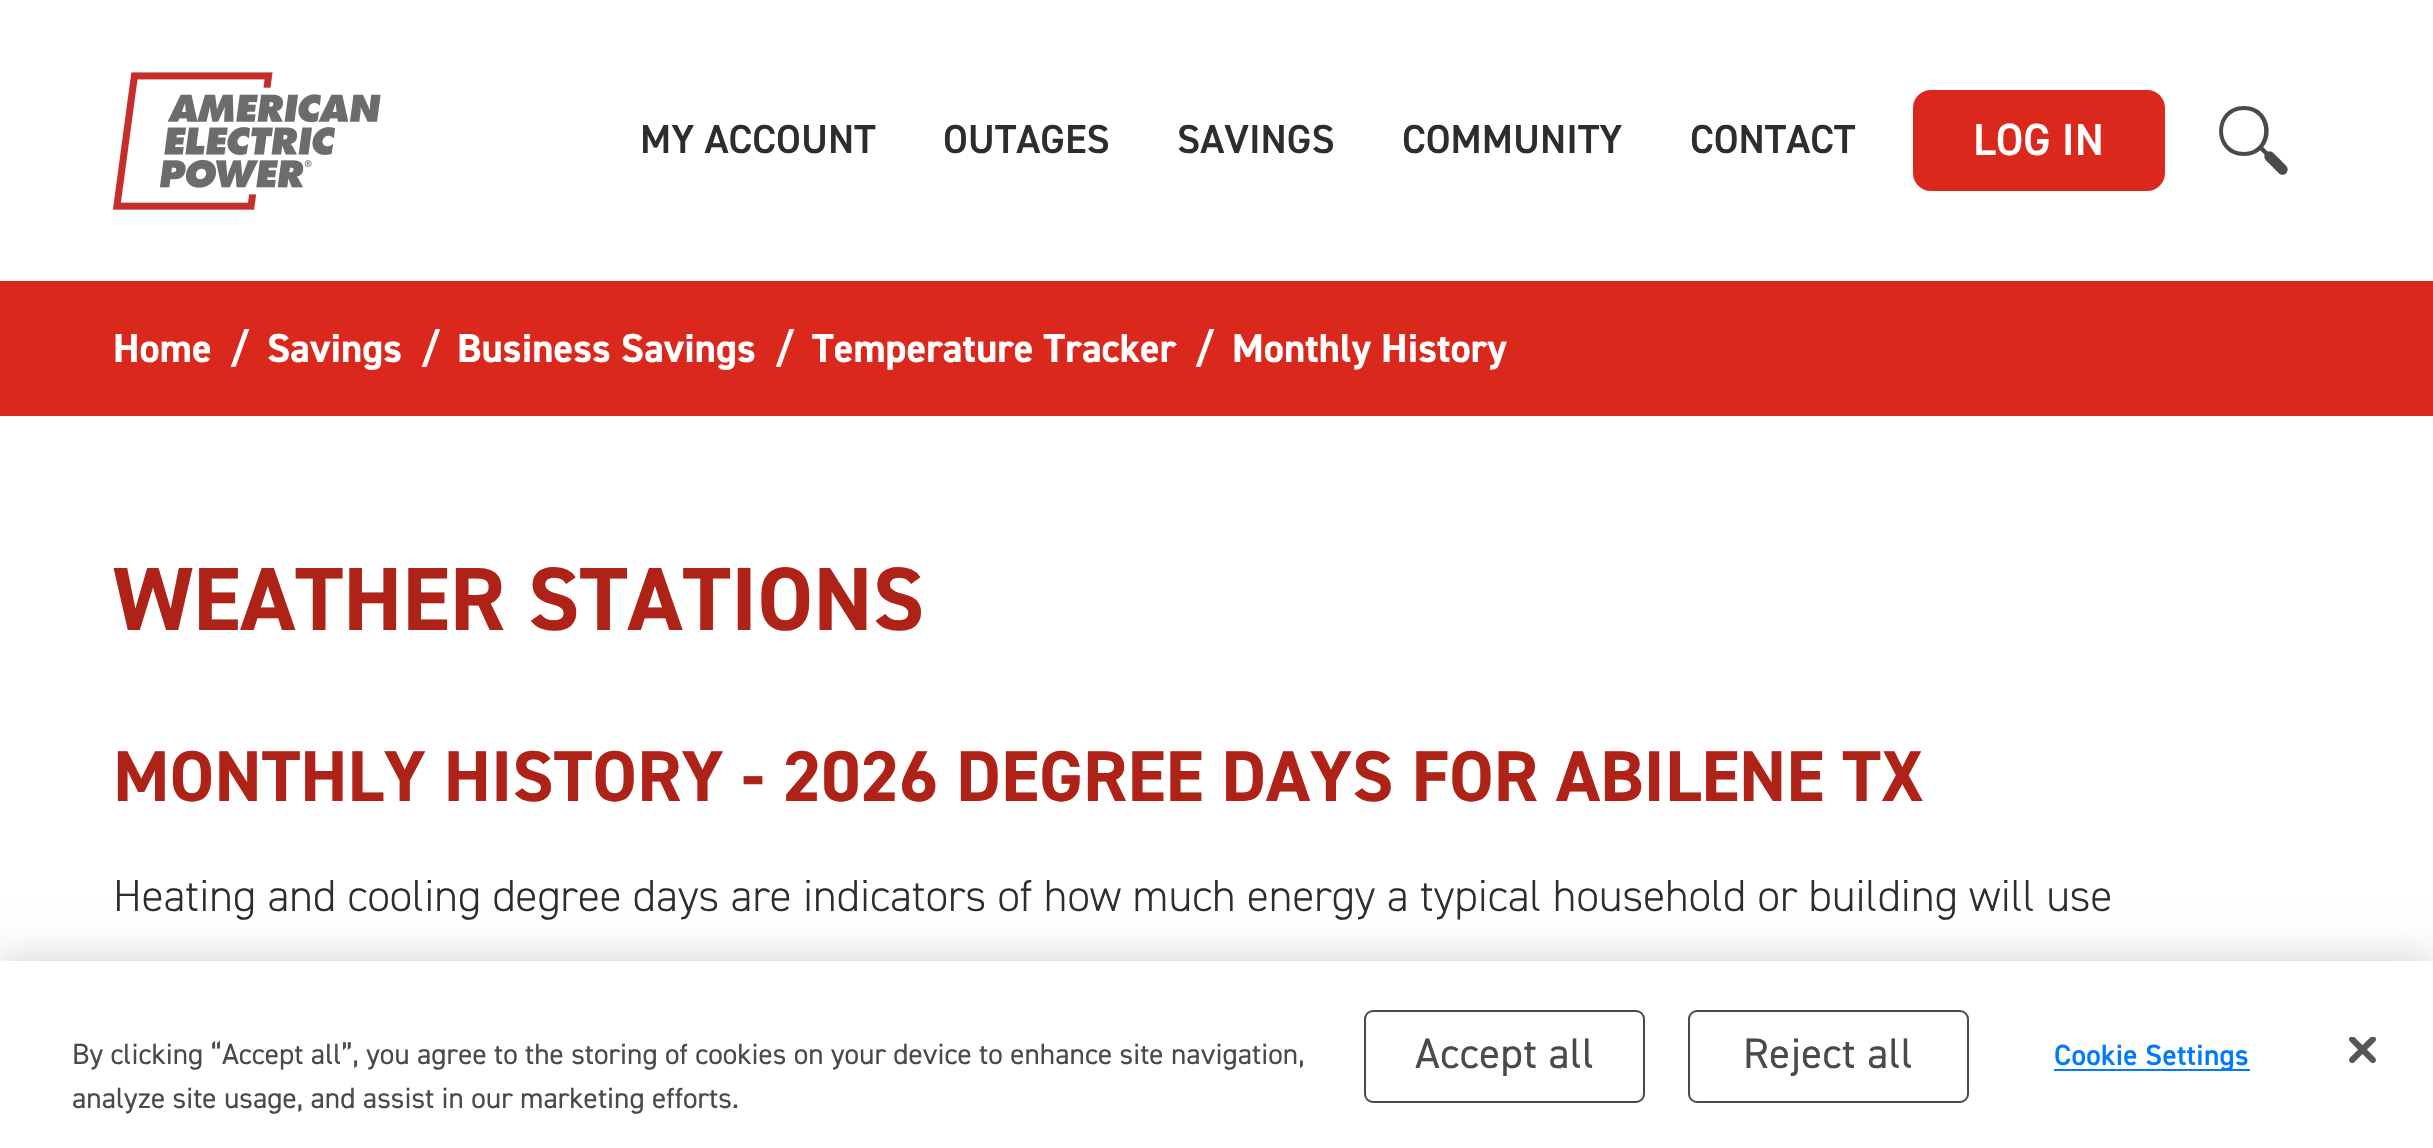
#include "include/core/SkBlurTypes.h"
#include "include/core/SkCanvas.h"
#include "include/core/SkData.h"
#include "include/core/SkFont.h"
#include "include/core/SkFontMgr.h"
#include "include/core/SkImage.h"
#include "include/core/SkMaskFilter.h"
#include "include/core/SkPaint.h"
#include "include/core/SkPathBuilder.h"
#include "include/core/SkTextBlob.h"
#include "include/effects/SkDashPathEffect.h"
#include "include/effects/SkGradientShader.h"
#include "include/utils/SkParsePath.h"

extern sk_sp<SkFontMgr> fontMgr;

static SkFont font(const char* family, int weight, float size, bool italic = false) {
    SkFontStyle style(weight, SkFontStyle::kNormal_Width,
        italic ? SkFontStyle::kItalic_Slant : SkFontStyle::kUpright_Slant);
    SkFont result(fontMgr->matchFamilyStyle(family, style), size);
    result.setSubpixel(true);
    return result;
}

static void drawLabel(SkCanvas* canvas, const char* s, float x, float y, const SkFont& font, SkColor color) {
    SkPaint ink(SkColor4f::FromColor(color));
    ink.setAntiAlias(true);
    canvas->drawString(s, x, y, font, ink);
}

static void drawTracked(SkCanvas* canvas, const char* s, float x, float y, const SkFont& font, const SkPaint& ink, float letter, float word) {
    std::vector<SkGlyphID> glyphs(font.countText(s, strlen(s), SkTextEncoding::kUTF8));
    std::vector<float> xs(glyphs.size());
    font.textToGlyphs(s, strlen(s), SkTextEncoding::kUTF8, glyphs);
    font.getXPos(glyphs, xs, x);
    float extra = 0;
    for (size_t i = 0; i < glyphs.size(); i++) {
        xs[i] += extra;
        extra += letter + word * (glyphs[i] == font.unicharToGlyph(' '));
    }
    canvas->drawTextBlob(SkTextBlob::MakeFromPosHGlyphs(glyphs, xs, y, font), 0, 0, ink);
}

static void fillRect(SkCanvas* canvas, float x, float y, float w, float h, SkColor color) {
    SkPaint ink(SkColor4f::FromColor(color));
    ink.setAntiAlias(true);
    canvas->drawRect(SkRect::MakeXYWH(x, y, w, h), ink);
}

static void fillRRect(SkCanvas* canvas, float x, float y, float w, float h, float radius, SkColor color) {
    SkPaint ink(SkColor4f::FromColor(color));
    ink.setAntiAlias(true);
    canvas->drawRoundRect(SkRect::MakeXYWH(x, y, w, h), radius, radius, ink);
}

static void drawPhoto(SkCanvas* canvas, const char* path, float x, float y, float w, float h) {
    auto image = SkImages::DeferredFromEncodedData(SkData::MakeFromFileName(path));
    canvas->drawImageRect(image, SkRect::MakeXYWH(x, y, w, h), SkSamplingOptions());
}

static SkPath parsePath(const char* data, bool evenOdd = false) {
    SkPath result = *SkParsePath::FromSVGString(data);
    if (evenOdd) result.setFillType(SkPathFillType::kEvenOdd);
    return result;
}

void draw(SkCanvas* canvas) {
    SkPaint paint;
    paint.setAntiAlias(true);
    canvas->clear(0xFFFFFFFF);
    drawPhoto(canvas, "assets/img1.png", 113, 72, 268, 138);
    SkFont font1 = font("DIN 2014", 600, 40.5f);
    drawLabel(canvas, "MY ACCOUNT", 640, 153, font1, 0xFF2D2D2D);
    drawLabel(canvas, "OUTAGES", 943, 153, font1, 0xFF2D2D2D);
    drawLabel(canvas, "SAVINGS", 1177, 153, font1, 0xFF2D2D2D);
    drawLabel(canvas, "COMMUNITY", 1402, 153, font1, 0xFF2D2D2D);
    drawLabel(canvas, "CONTACT", 1690, 153, font1, 0xFF2D2D2D);
    fillRRect(canvas, 1913, 90, 252, 101, 18, 0xFFDA291C);
    SkFont font2 = font("DIN 2014", 600, 45);
    drawLabel(canvas, "LOG IN", 1973, 155, font2, 0xFFFFFFFF);
    paint.setColor(0xFF4A4A4A);
    canvas->drawPath(parsePath("M2244 106C2277 106 2277 156 2244 156C2211 156 2211 106 2244 106M2244 110C2216 110 2216 152 2244 152C2271 152 2271 110 2244 110", true), paint);
    paint.setStroke(true);
    paint.setStrokeWidth(4.4f);
    canvas->drawPath(parsePath("M2260 147L2275.5 162.5"), paint);
    paint.setStrokeWidth(10.3f);
    paint.setStrokeCap(SkPaint::kRound_Cap);
    canvas->drawPath(parsePath("M2269.5 156.5L2282.5 169.5"), paint);
    fillRect(canvas, 0, 281, 2433, 135, 0xFFDA291C);
    SkFont font3 = font("DIN 2014", 700, 40.5f);
    drawLabel(canvas, "Home", 113, 362, font3, 0xFFFFFFFF);
    drawLabel(canvas, "/", 229, 362, font3, 0xFFFFFFFF);
    drawLabel(canvas, "Savings", 267, 362, font3, 0xFFFFFFFF);
    drawLabel(canvas, "/", 420, 362, font3, 0xFFFFFFFF);
    drawLabel(canvas, "Business Savings", 457, 362, font3, 0xFFFFFFFF);
    drawLabel(canvas, "/", 774, 362, font3, 0xFFFFFFFF);
    drawLabel(canvas, "Temperature Tracker", 812, 362, font3, 0xFFFFFFFF);
    drawLabel(canvas, "/", 1194, 362, font3, 0xFFFFFFFF);
    drawLabel(canvas, "Monthly History", 1232, 362, font3, 0xFFFFFFFF);
    SkFont font4 = font("DIN 2014", 700, 90);
    drawLabel(canvas, "WEATHER STATIONS", 113, 630, font4, 0xFFAF2218);
    SkFont font5 = font("DIN 2014", 700, 72);
    drawLabel(canvas, "MONTHLY HISTORY - 2026 DEGREE DAYS FOR ABILENE TX", 113, 801, font5, 0xFFAF2218);
    SkFont font6 = font("DIN 2014", 300, 45);
    drawLabel(canvas, "Heating and cooling degree days are indicators of how much energy a typical household or building will use", 113, 911, font6, 0xFF2D2D2D);
    paint.setStroke(false);
    paint.setColor(0x33000000);
    paint.setMaskFilter(SkMaskFilter::MakeBlur(kNormal_SkBlurStyle, 20));
    canvas->drawRect(SkRect::MakeXYWH(0, 961, 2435, 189), paint);
    paint.setMaskFilter(nullptr);
    fillRect(canvas, 0, 961, 2433, 187, 0xFFFFFFFF);
    SkFont font7 = font("DIN 2014", 400, 29.25f);
    drawLabel(canvas, "By clicking “Accept all”, you agree to the storing of cookies on your device to enhance site navigation,", 72, 1064, font7, 0xFF4A4A4A);
    drawLabel(canvas, "analyze site usage, and assist in our marketing efforts.", 72, 1108, font7, 0xFF4A4A4A);
    paint.setStroke(true);
    paint.setStrokeWidth(2);
    paint.setStrokeCap(SkPaint::kButt_Cap);
    paint.setColor(0xFF4A4A4A);
    canvas->drawRoundRect(SkRect::MakeXYWH(1365, 1011, 279, 91), 8, 8, paint);
    SkFont font8 = font("DIN 2014", 400, 42.75f);
    paint.setStroke(false);
    drawTracked(canvas, "Accept all", 1415, 1068, font8, paint, 0.5f, 0);
    paint.setStroke(true);
    canvas->drawRoundRect(SkRect::MakeXYWH(1689, 1011, 279, 91), 8, 8, paint);
    paint.setStroke(false);
    drawTracked(canvas, "Reject all", 1743, 1068, font8, paint, 0.5f, 0);
    fillRect(canvas, 2054, 1069, 196, 2, 0xFF007BFF);
    SkFont font9 = font("DIN 2014", 600, 29.25f);
    paint.setColor(0xFF007BFF);
    drawTracked(canvas, "Cookie Settings", 2054, 1065, font9, paint, 0.25f, 0);
    drawPhoto(canvas, "assets/img2.png", 2349, 1037, 27, 27);
}
